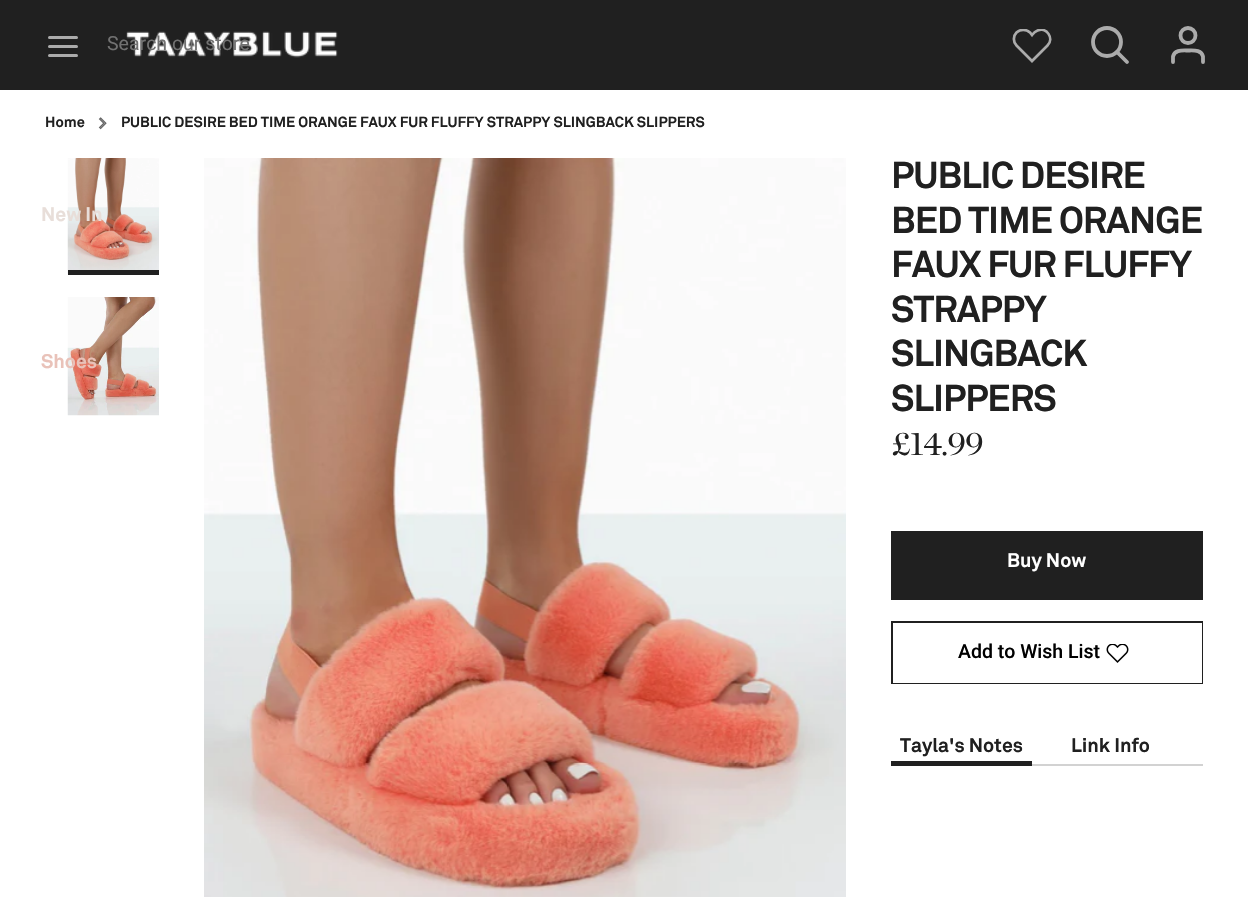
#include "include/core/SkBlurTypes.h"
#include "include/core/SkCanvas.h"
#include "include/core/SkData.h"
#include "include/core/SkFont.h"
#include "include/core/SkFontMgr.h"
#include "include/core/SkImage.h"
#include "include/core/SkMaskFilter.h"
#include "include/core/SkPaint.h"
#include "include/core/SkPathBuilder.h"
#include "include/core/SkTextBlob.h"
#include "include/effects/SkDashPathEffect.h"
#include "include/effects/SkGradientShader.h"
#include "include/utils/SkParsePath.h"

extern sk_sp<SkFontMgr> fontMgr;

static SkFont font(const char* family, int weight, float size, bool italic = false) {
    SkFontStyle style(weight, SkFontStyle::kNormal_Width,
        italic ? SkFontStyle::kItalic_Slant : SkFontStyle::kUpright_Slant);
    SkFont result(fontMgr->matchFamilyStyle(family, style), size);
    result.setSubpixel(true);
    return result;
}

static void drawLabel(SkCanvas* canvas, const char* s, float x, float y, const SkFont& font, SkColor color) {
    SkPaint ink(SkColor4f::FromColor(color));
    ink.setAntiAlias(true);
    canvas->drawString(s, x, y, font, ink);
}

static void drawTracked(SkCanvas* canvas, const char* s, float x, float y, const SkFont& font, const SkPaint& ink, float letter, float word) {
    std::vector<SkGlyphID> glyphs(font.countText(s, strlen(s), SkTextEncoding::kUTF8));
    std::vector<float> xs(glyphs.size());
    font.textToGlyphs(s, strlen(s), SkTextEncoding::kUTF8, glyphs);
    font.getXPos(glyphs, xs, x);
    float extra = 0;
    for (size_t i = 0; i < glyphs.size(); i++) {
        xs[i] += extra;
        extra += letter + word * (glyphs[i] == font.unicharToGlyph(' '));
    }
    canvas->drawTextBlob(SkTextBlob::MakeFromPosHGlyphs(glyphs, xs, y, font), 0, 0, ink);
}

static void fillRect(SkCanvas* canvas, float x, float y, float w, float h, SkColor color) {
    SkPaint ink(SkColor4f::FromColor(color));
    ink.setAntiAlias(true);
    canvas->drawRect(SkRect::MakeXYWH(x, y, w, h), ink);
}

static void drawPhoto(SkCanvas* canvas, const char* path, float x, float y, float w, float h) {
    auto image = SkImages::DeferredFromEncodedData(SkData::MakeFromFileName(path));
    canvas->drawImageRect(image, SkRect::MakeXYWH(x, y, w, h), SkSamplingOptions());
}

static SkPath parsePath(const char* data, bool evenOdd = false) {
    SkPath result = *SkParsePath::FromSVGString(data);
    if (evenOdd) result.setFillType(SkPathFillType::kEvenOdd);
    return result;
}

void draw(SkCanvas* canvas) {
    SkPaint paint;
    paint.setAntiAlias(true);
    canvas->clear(0xFFFFFFFF);
    fillRect(canvas, 0, 0, 1248, 90, 0xFF202020);
    drawPhoto(canvas, "assets/img1.png", 126, 31, 212, 27);
    paint.setStroke(true);
    paint.setStrokeWidth(3);
    paint.setStrokeCap(SkPaint::kRound_Cap);
    paint.setColor(0xFFABABAB);
    canvas->drawPath(parsePath("M49.5 46.5H76.5M49.5 37.5H76.5M49.5 55.5H76.5"), paint);
    SkFont font1 = font("Roboto", 400, 19.5f);
    drawLabel(canvas, "Search our store", 107, 50, font1, 0xFF717171);
    canvas->save();
    canvas->clipRect(SkRect::MakeXYWH(1010, 29, 45, 34));
    paint.setStrokeWidth(2.7f);
    canvas->drawPath(parsePath("M1047.5 45.5L1032 61L1016.5 45.5C1013 42 1013 36 1016.5 32.5C1020.5 29 1026 29 1030 32.5L1032 35C1033.5 33 1035 31.5 1037.5 30.5C1046.5 26.5 1054.5 38.5 1047.5 45.5Z"), paint);
    canvas->restore();
    paint.setStrokeWidth(3.8f);
    paint.setStrokeCap(SkPaint::kButt_Cap);
    canvas->drawCircle(1107, 42, 14, paint);
    paint.setStrokeCap(SkPaint::kRound_Cap);
    canvas->drawPath(parsePath("M1127 62L1117 52"), paint);
    canvas->drawPath(parsePath("M1203 62V56.5C1201.5 49.5 1193.5 50.5 1188 50.5C1182.5 50.5 1174.5 49.5 1173 56.5V62"), paint);
    paint.setStrokeCap(SkPaint::kButt_Cap);
    canvas->drawCircle(1188, 35.5f, 7.5f, paint);
    drawPhoto(canvas, "assets/img3.png", 67, 158, 92, 117);
    SkFont font2 = font("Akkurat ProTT", 700, 19.5f);
    drawLabel(canvas, "New In", 41, 221, font2, 0xFFE8DED9);
    drawPhoto(canvas, "assets/img4.png", 67, 297, 92, 119);
    drawLabel(canvas, "Shoes", 41, 368, font2, 0xFFE9C2B9);
    SkFont font3 = font("Akkurat ProTT", 700, 14.6f);
    drawLabel(canvas, "Home", 45, 127, font3, 0xFF202020);
    drawPhoto(canvas, "assets/img2.png", 98, 117, 9, 13);
    drawLabel(canvas, "PUBLIC DESIRE BED TIME ORANGE FAUX FUR FLUFFY STRAPPY SLINGBACK SLIPPERS", 121, 127, font3, 0xFF202020);
    fillRect(canvas, 68, 270, 91, 5, 0xFF202020);
    drawPhoto(canvas, "assets/img5.png", 204, 158, 642, 739);
    SkFont font4 = font("Akkurat ProTT", 700, 37);
    paint.setStroke(false);
    paint.setColor(0xFF202020);
    drawTracked(canvas, "PUBLIC DESIRE", 891, 188, font4, paint, -0.9f, 0);
    drawTracked(canvas, "BED TIME ORANGE", 891, 233, font4, paint, -0.9f, 0);
    drawTracked(canvas, "FAUX FUR FLUFFY", 891, 277, font4, paint, -0.9f, 0);
    drawTracked(canvas, "STRAPPY", 891, 322, font4, paint, -0.9f, 0);
    drawTracked(canvas, "SLINGBACK", 891, 366, font4, paint, -0.9f, 0);
    drawTracked(canvas, "SLIPPERS", 891, 411, font4, paint, -0.9f, 0);
    SkFont font5 = font("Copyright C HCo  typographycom", 300, 33);
    drawTracked(canvas, "£14.99", 891, 455, font5, paint, -0.75f, 0);
    paint.setStroke(true);
    paint.setStrokeWidth(2);
    canvas->drawRect(SkRect::MakeXYWH(892, 532, 310, 67), paint);
    fillRect(canvas, 893, 533, 308, 65, 0xFF202020);
    drawLabel(canvas, "Buy Now", 1007, 567, font2, 0xFFFFFFFF);
    canvas->drawRect(SkRect::MakeXYWH(892, 622, 310, 61), paint);
    fillRect(canvas, 893, 623, 309, 60, 0xFFFFFFFF);
    SkFont font6 = font("Roboto", 500, 19.5f);
    drawLabel(canvas, "Add to Wish List", 958, 658, font6, 0xFF000000);
    drawPhoto(canvas, "assets/img6.png", 1106, 644, 23, 19);
    fillRect(canvas, 1032, 764, 171, 2, 0xFFD2D2D2);
    drawLabel(canvas, "Tayla's Notes", 900, 752, font2, 0xFF202020);
    fillRect(canvas, 891, 761, 141, 5, 0xFF202020);
    drawLabel(canvas, "Link Info", 1071, 752, font2, 0xFF202020);
}
